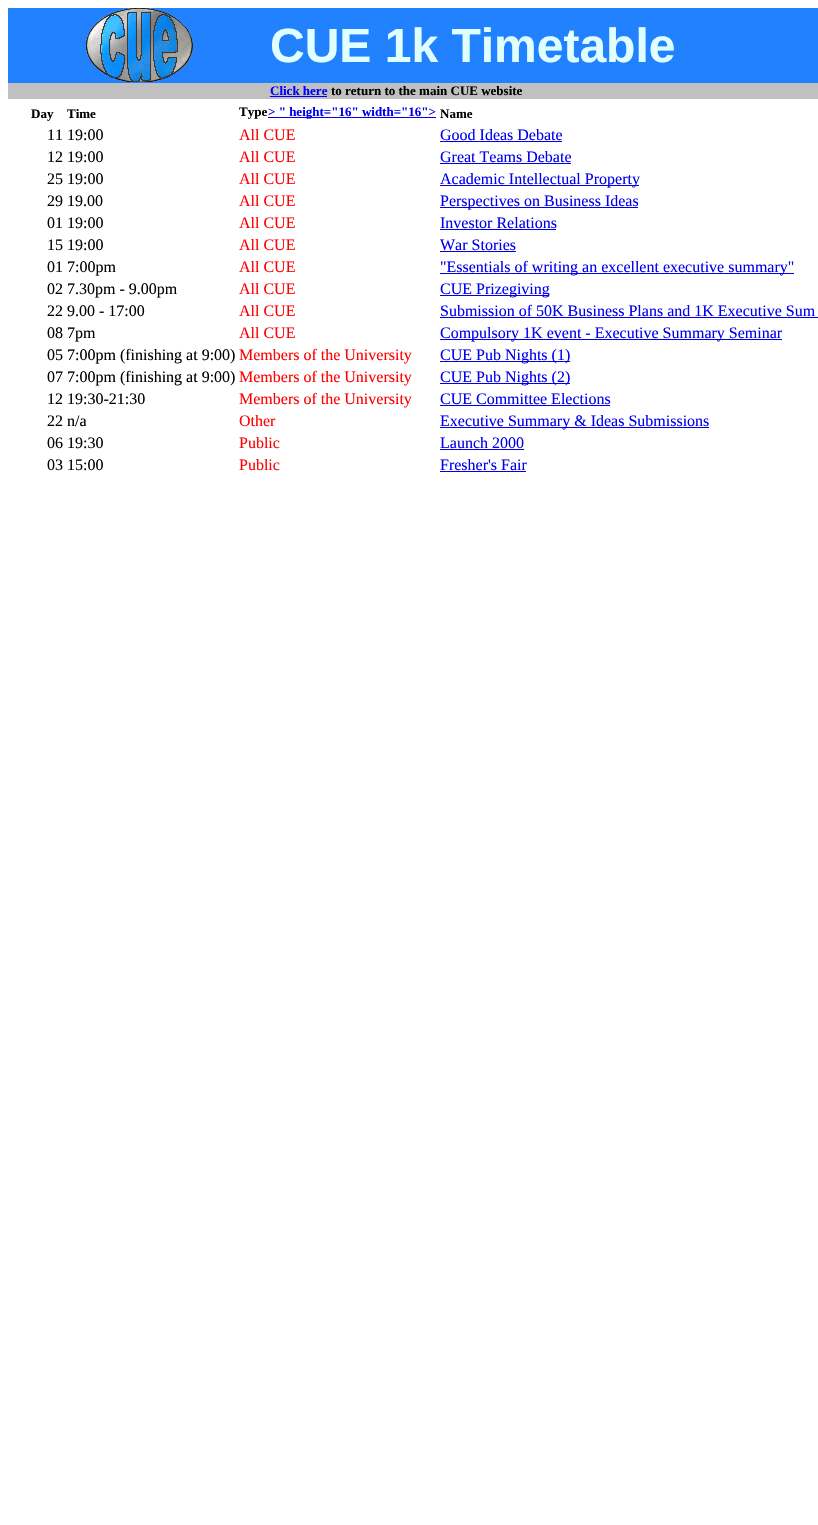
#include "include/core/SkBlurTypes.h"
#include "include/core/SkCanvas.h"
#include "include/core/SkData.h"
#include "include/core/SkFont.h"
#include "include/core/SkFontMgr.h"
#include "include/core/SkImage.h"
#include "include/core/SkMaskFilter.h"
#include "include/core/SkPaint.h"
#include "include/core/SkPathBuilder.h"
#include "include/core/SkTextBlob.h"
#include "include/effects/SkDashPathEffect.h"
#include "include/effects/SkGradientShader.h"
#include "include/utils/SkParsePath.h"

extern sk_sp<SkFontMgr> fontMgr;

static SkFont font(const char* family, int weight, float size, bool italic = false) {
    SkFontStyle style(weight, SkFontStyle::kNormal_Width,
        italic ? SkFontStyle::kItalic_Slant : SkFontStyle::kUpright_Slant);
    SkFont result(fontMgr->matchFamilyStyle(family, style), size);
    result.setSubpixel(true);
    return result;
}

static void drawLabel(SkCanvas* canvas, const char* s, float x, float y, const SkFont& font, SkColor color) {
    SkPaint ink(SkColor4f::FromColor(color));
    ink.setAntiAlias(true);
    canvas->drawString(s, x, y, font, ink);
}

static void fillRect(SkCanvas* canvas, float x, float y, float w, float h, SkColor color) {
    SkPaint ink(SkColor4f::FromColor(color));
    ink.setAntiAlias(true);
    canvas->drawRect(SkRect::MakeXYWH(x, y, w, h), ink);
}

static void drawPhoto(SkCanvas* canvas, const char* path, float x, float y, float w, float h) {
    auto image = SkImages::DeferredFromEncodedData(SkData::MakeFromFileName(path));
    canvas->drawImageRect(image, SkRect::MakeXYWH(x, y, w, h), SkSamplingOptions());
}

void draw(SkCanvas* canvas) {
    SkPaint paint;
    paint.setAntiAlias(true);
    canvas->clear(0xFFFFFFFF);
    fillRect(canvas, 8, 8, 810, 75, 0xFF2181FF);
    drawPhoto(canvas, "assets/img1.png", 86, 8, 107, 74);
    SkFont font1 = font("Liberation Sans", 700, 48);
    drawLabel(canvas, "CUE 1k Timetable", 270, 62, font1, 0xFFE0FFFF);
    fillRect(canvas, 8, 83, 810, 16, 0xFFC0C0C0);
    SkFont font2 = font("Liberation Serif", 700, 13);
    drawLabel(canvas, "Click here", 270, 95, font2, 0xFF0000FF);
    fillRect(canvas, 270, 96, 57, 1, 0xFF0000EE);
    drawLabel(canvas, "to return to the main CUE website", 331, 95, font2, 0xFF000000);
    drawLabel(canvas, "Day", 31, 118, font2, 0xFF000000);
    drawLabel(canvas, "Time", 67, 118, font2, 0xFF000000);
    drawLabel(canvas, "Type", 239, 116, font2, 0xFF000000);
    fillRect(canvas, 268, 117, 168, 1, 0xFF0000EE);
    drawLabel(canvas, "> \" height=\"16\" width=\"16\">", 268, 116, font2, 0xFF0000EE);
    drawLabel(canvas, "Name", 440, 118, font2, 0xFF000000);
    SkFont font3 = font("Liberation Serif", 400, 16);
    drawLabel(canvas, "11 19:00", 47, 140, font3, 0xFF000000);
    drawLabel(canvas, "All CUE", 239, 140, font3, 0xFFFF0000);
    drawLabel(canvas, "Good Ideas Debate", 440, 140, font3, 0xFF0000EE);
    fillRect(canvas, 440, 141, 122, 1, 0xFF0000EE);
    drawLabel(canvas, "12 19:00", 47, 162, font3, 0xFF000000);
    drawLabel(canvas, "All CUE", 239, 162, font3, 0xFFFF0000);
    drawLabel(canvas, "Great Teams Debate", 440, 162, font3, 0xFF0000EE);
    fillRect(canvas, 440, 163, 131, 1, 0xFF0000EE);
    drawLabel(canvas, "25 19:00", 47, 184, font3, 0xFF000000);
    drawLabel(canvas, "All CUE", 239, 184, font3, 0xFFFF0000);
    fillRect(canvas, 440, 185, 199, 1, 0xFF0000EE);
    drawLabel(canvas, "Academic Intellectual Property", 440, 184, font3, 0xFF0000EE);
    drawLabel(canvas, "29 19.00", 47, 206, font3, 0xFF000000);
    drawLabel(canvas, "All CUE", 239, 206, font3, 0xFFFF0000);
    fillRect(canvas, 440, 207, 198, 1, 0xFF0000EE);
    drawLabel(canvas, "Perspectives on Business Ideas", 440, 206, font3, 0xFF0000EE);
    drawLabel(canvas, "01 19:00", 47, 228, font3, 0xFF000000);
    drawLabel(canvas, "All CUE", 239, 228, font3, 0xFFFF0000);
    drawLabel(canvas, "Investor Relations", 440, 228, font3, 0xFF0000EE);
    fillRect(canvas, 440, 229, 116, 1, 0xFF0000EE);
    drawLabel(canvas, "15 19:00", 47, 250, font3, 0xFF000000);
    drawLabel(canvas, "All CUE", 239, 250, font3, 0xFFFF0000);
    drawLabel(canvas, "War Stories", 440, 250, font3, 0xFF0000EE);
    fillRect(canvas, 440, 251, 76, 1, 0xFF0000EE);
    drawLabel(canvas, "01 7:00pm", 47, 272, font3, 0xFF000000);
    drawLabel(canvas, "All CUE", 239, 272, font3, 0xFFFF0000);
    fillRect(canvas, 440, 273, 354, 1, 0xFF0000EE);
    drawLabel(canvas, "\"Essentials of writing an excellent executive summary\"", 440, 272, font3, 0xFF0000EE);
    drawLabel(canvas, "02 7.30pm - 9.00pm", 47, 294, font3, 0xFF000000);
    drawLabel(canvas, "All CUE", 239, 294, font3, 0xFFFF0000);
    fillRect(canvas, 440, 295, 109, 1, 0xFF0000EE);
    drawLabel(canvas, "CUE Prizegiving", 440, 294, font3, 0xFF0000EE);
    drawLabel(canvas, "22 9.00 - 17:00", 47, 316, font3, 0xFF000000);
    drawLabel(canvas, "All CUE", 239, 316, font3, 0xFFFF0000);
    drawLabel(canvas, "Submission of 50K Business Plans and 1K Executive Sum", 440, 316, font3, 0xFF0000EE);
    fillRect(canvas, 440, 317, 378, 1, 0xFF0000EE);
    drawLabel(canvas, "08 7pm", 47, 338, font3, 0xFF000000);
    drawLabel(canvas, "All CUE", 239, 338, font3, 0xFFFF0000);
    fillRect(canvas, 440, 339, 342, 1, 0xFF0000EE);
    drawLabel(canvas, "Compulsory 1K event - Executive Summary Seminar", 440, 338, font3, 0xFF0000EE);
    drawLabel(canvas, "05 7:00pm (finishing at 9:00)", 47, 360, font3, 0xFF000000);
    drawLabel(canvas, "Members of the University", 239, 360, font3, 0xFFFF0000);
    fillRect(canvas, 440, 361, 130, 1, 0xFF0000EE);
    drawLabel(canvas, "CUE Pub Nights (1)", 440, 360, font3, 0xFF0000EE);
    drawLabel(canvas, "07 7:00pm (finishing at 9:00)", 47, 382, font3, 0xFF000000);
    drawLabel(canvas, "Members of the University", 239, 382, font3, 0xFFFF0000);
    fillRect(canvas, 440, 383, 130, 1, 0xFF0000EE);
    drawLabel(canvas, "CUE Pub Nights (2)", 440, 382, font3, 0xFF0000EE);
    drawLabel(canvas, "12 19:30-21:30", 47, 404, font3, 0xFF000000);
    drawLabel(canvas, "Members of the University", 239, 404, font3, 0xFFFF0000);
    drawLabel(canvas, "CUE Committee Elections", 440, 404, font3, 0xFF0000EE);
    fillRect(canvas, 440, 405, 170, 1, 0xFF0000EE);
    drawLabel(canvas, "22 n/a", 47, 426, font3, 0xFF000000);
    drawLabel(canvas, "Other", 239, 426, font3, 0xFFFF0000);
    fillRect(canvas, 440, 427, 269, 1, 0xFF0000EE);
    drawLabel(canvas, "Executive Summary & Ideas Submissions", 440, 426, font3, 0xFF0000EE);
    drawLabel(canvas, "06 19:30", 47, 448, font3, 0xFF000000);
    drawLabel(canvas, "Public", 239, 448, font3, 0xFFFF0000);
    drawLabel(canvas, "Launch 2000", 440, 448, font3, 0xFF0000EE);
    fillRect(canvas, 440, 449, 84, 1, 0xFF0000EE);
    drawLabel(canvas, "03 15:00", 47, 470, font3, 0xFF000000);
    drawLabel(canvas, "Public", 239, 470, font3, 0xFFFF0000);
    drawLabel(canvas, "Fresher's Fair", 440, 470, font3, 0xFF0000EE);
    fillRect(canvas, 440, 471, 86, 1, 0xFF0000EE);
}
